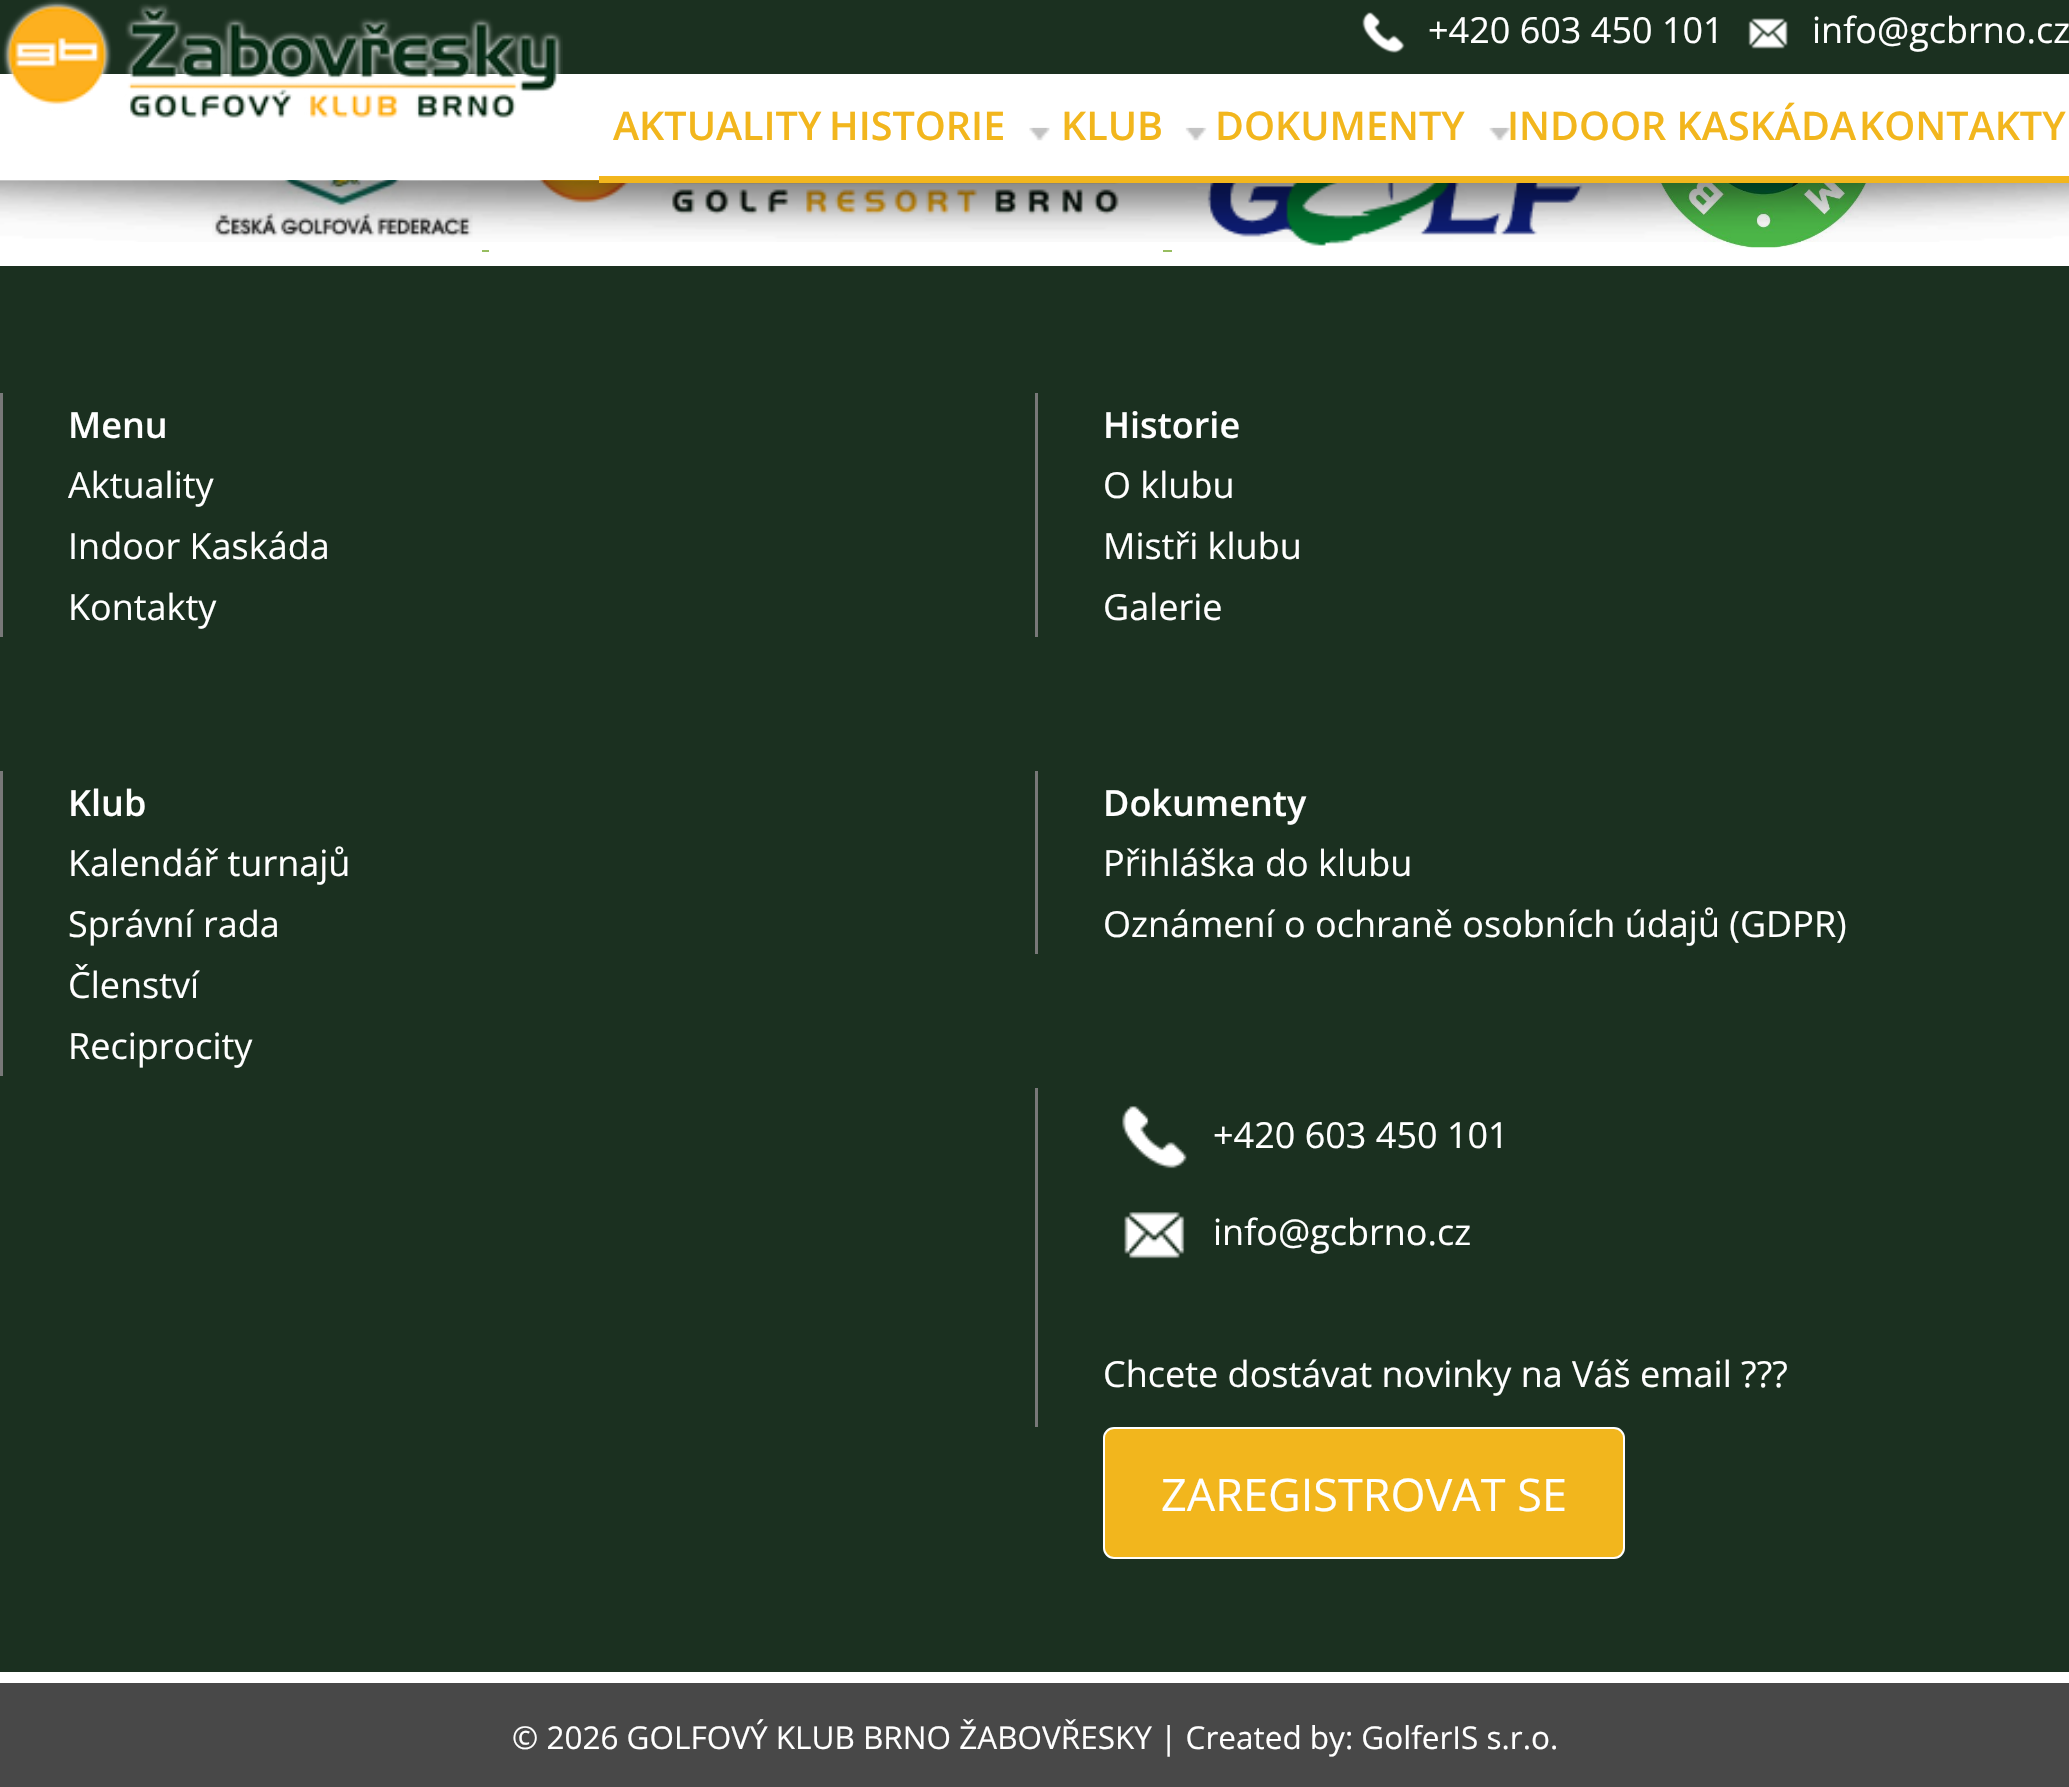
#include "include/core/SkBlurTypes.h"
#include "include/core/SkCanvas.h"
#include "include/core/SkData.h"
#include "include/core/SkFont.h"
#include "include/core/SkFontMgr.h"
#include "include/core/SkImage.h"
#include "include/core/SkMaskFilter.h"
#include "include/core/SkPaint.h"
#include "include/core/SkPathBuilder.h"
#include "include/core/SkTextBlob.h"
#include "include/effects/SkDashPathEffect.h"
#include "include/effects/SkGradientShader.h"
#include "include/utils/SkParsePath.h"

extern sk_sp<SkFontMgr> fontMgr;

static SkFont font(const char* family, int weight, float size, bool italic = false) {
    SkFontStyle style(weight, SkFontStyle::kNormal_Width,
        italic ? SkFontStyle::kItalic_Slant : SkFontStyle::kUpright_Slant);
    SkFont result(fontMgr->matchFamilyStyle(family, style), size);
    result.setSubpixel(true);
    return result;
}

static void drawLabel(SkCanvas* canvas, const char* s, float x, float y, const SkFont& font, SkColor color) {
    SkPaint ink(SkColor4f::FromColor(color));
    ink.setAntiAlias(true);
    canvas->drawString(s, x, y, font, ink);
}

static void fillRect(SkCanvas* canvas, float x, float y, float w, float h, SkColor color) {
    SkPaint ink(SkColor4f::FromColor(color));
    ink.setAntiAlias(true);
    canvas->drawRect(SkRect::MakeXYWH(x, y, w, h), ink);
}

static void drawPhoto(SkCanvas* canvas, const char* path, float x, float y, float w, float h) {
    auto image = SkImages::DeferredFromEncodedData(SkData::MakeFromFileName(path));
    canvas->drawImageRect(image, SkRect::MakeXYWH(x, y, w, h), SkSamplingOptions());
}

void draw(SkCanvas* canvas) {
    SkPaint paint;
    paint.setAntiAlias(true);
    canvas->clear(0xFF1B3020);
    fillRect(canvas, 0, 74, 2069, 192, 0xFFFFFFFF);
    drawPhoto(canvas, "assets/img8.png", 212, 180, 261, 58);
    drawPhoto(canvas, "assets/img9.png", 528, 180, 591, 35);
    drawPhoto(canvas, "assets/img10.png", 1207, 183, 376, 63);
    drawPhoto(canvas, "assets/img11.png", 1651, 183, 226, 65);
    drawPhoto(canvas, "assets/img1.png", 0, 180, 2069, 62);
    drawPhoto(canvas, "assets/img2.png", 2, 0, 561, 118);
    drawPhoto(canvas, "assets/img3.png", 1362, 12, 43, 41);
    SkFont font1 = font("Open Sans", 400, 36);
    drawLabel(canvas, "+420 603 450 101", 1428, 43, font1, 0xFFFFFFFF);
    drawPhoto(canvas, "assets/img4.png", 1748, 18, 40, 31);
    drawLabel(canvas, "info@gcbrno.cz", 1812, 43, font1, 0xFFFFFFFF);
    fillRect(canvas, 599, 176, 1470, 7, 0xFFF2B61D);
    SkFont font2 = font("Open Sans", 600, 39.5f);
    drawLabel(canvas, "AKTUALITY", 613, 140, font2, 0xFFF2B61D);
    drawLabel(canvas, "HISTORIE", 829, 140, font2, 0xFFF2B61D);
    drawPhoto(canvas, "assets/img5.png", 1029, 127, 21, 14);
    drawLabel(canvas, "KLUB", 1061, 140, font2, 0xFFF2B61D);
    drawPhoto(canvas, "assets/img6.png", 1185, 127, 22, 14);
    drawLabel(canvas, "DOKUMENTY", 1215, 140, font2, 0xFFF2B61D);
    drawPhoto(canvas, "assets/img7.png", 1489, 127, 21, 14);
    drawLabel(canvas, "INDOOR KASKÁDA", 1507, 140, font2, 0xFFF2B61D);
    drawLabel(canvas, "KONTAKTY", 1859, 140, font2, 0xFFF2B61D);
    fillRect(canvas, 482, 250, 7, 2, 0xFF97BD60);
    fillRect(canvas, 1163, 250, 9, 2, 0xFF97BD60);
    fillRect(canvas, 0, 393, 3, 244, 0xFF787878);
    SkFont font3 = font("Open Sans", 600, 36);
    drawLabel(canvas, "Menu", 68, 438, font3, 0xFFFFFFFF);
    drawLabel(canvas, "Aktuality", 68, 498, font1, 0xFFFFFFFF);
    drawLabel(canvas, "Indoor Kaskáda", 68, 559, font1, 0xFFFFFFFF);
    drawLabel(canvas, "Kontakty", 68, 620, font1, 0xFFFFFFFF);
    fillRect(canvas, 1035, 393, 3, 244, 0xFF787878);
    drawLabel(canvas, "Historie", 1103, 438, font3, 0xFFFFFFFF);
    drawLabel(canvas, "O klubu", 1103, 498, font1, 0xFFFFFFFF);
    drawLabel(canvas, "Mistři klubu", 1103, 559, font1, 0xFFFFFFFF);
    drawLabel(canvas, "Galerie", 1103, 620, font1, 0xFFFFFFFF);
    fillRect(canvas, 0, 771, 3, 305, 0xFF787878);
    drawLabel(canvas, "Klub", 68, 816, font3, 0xFFFFFFFF);
    drawLabel(canvas, "Kalendář turnajů", 68, 876, font1, 0xFFFFFFFF);
    drawLabel(canvas, "Správní rada", 68, 937, font1, 0xFFFFFFFF);
    drawLabel(canvas, "Členství", 68, 998, font1, 0xFFFFFFFF);
    drawLabel(canvas, "Reciprocity", 68, 1059, font1, 0xFFFFFFFF);
    fillRect(canvas, 1035, 771, 3, 183, 0xFF787878);
    drawLabel(canvas, "Dokumenty", 1103, 816, font3, 0xFFFFFFFF);
    drawLabel(canvas, "Přihláška do klubu", 1103, 876, font1, 0xFFFFFFFF);
    drawLabel(canvas, "Oznámení o ochraně osobních údajů (GDPR)", 1103, 937, font1, 0xFFFFFFFF);
    fillRect(canvas, 1035, 1088, 3, 339, 0xFF787878);
    drawPhoto(canvas, "assets/img12.png", 1122, 1106, 65, 63);
    drawLabel(canvas, "+420 603 450 101", 1213, 1148, font1, 0xFFFFFFFF);
    drawPhoto(canvas, "assets/img13.png", 1124, 1212, 61, 47);
    drawLabel(canvas, "info@gcbrno.cz", 1213, 1245, font1, 0xFFFFFFFF);
    drawLabel(canvas, "Chcete dostávat novinky na Váš email ?\077?", 1103, 1387, font1, 0xFFFFFFFF);
    paint.setColor(0xFFF2B61D);
    canvas->drawRoundRect(SkRect::MakeXYWH(1104, 1428, 520, 130), 10, 10, paint);
    paint.setStroke(true);
    paint.setStrokeWidth(2);
    paint.setColor(0xFFFFFFFF);
    canvas->drawRoundRect(SkRect::MakeXYWH(1104, 1428, 520, 130), 10, 10, paint);
    SkFont font4 = font("Open Sans", 400, 45);
    drawLabel(canvas, "ZAREGISTROVAT SE", 1161, 1511, font4, 0xFFFFFFFF);
    fillRect(canvas, 0, 1683, 2069, 104, 0xFF484848);
    fillRect(canvas, 0, 1672, 2069, 11, 0xFFFFFFFF);
    SkFont font5 = font("Open Sans", 400, 31.5f);
    drawLabel(canvas, "© 2026 GOLFOVÝ KLUB BRNO ŽABOVŘESKY | Created by: GolferIS s.r.o.", 512, 1749, font5, 0xFFFFFFFF);
}
